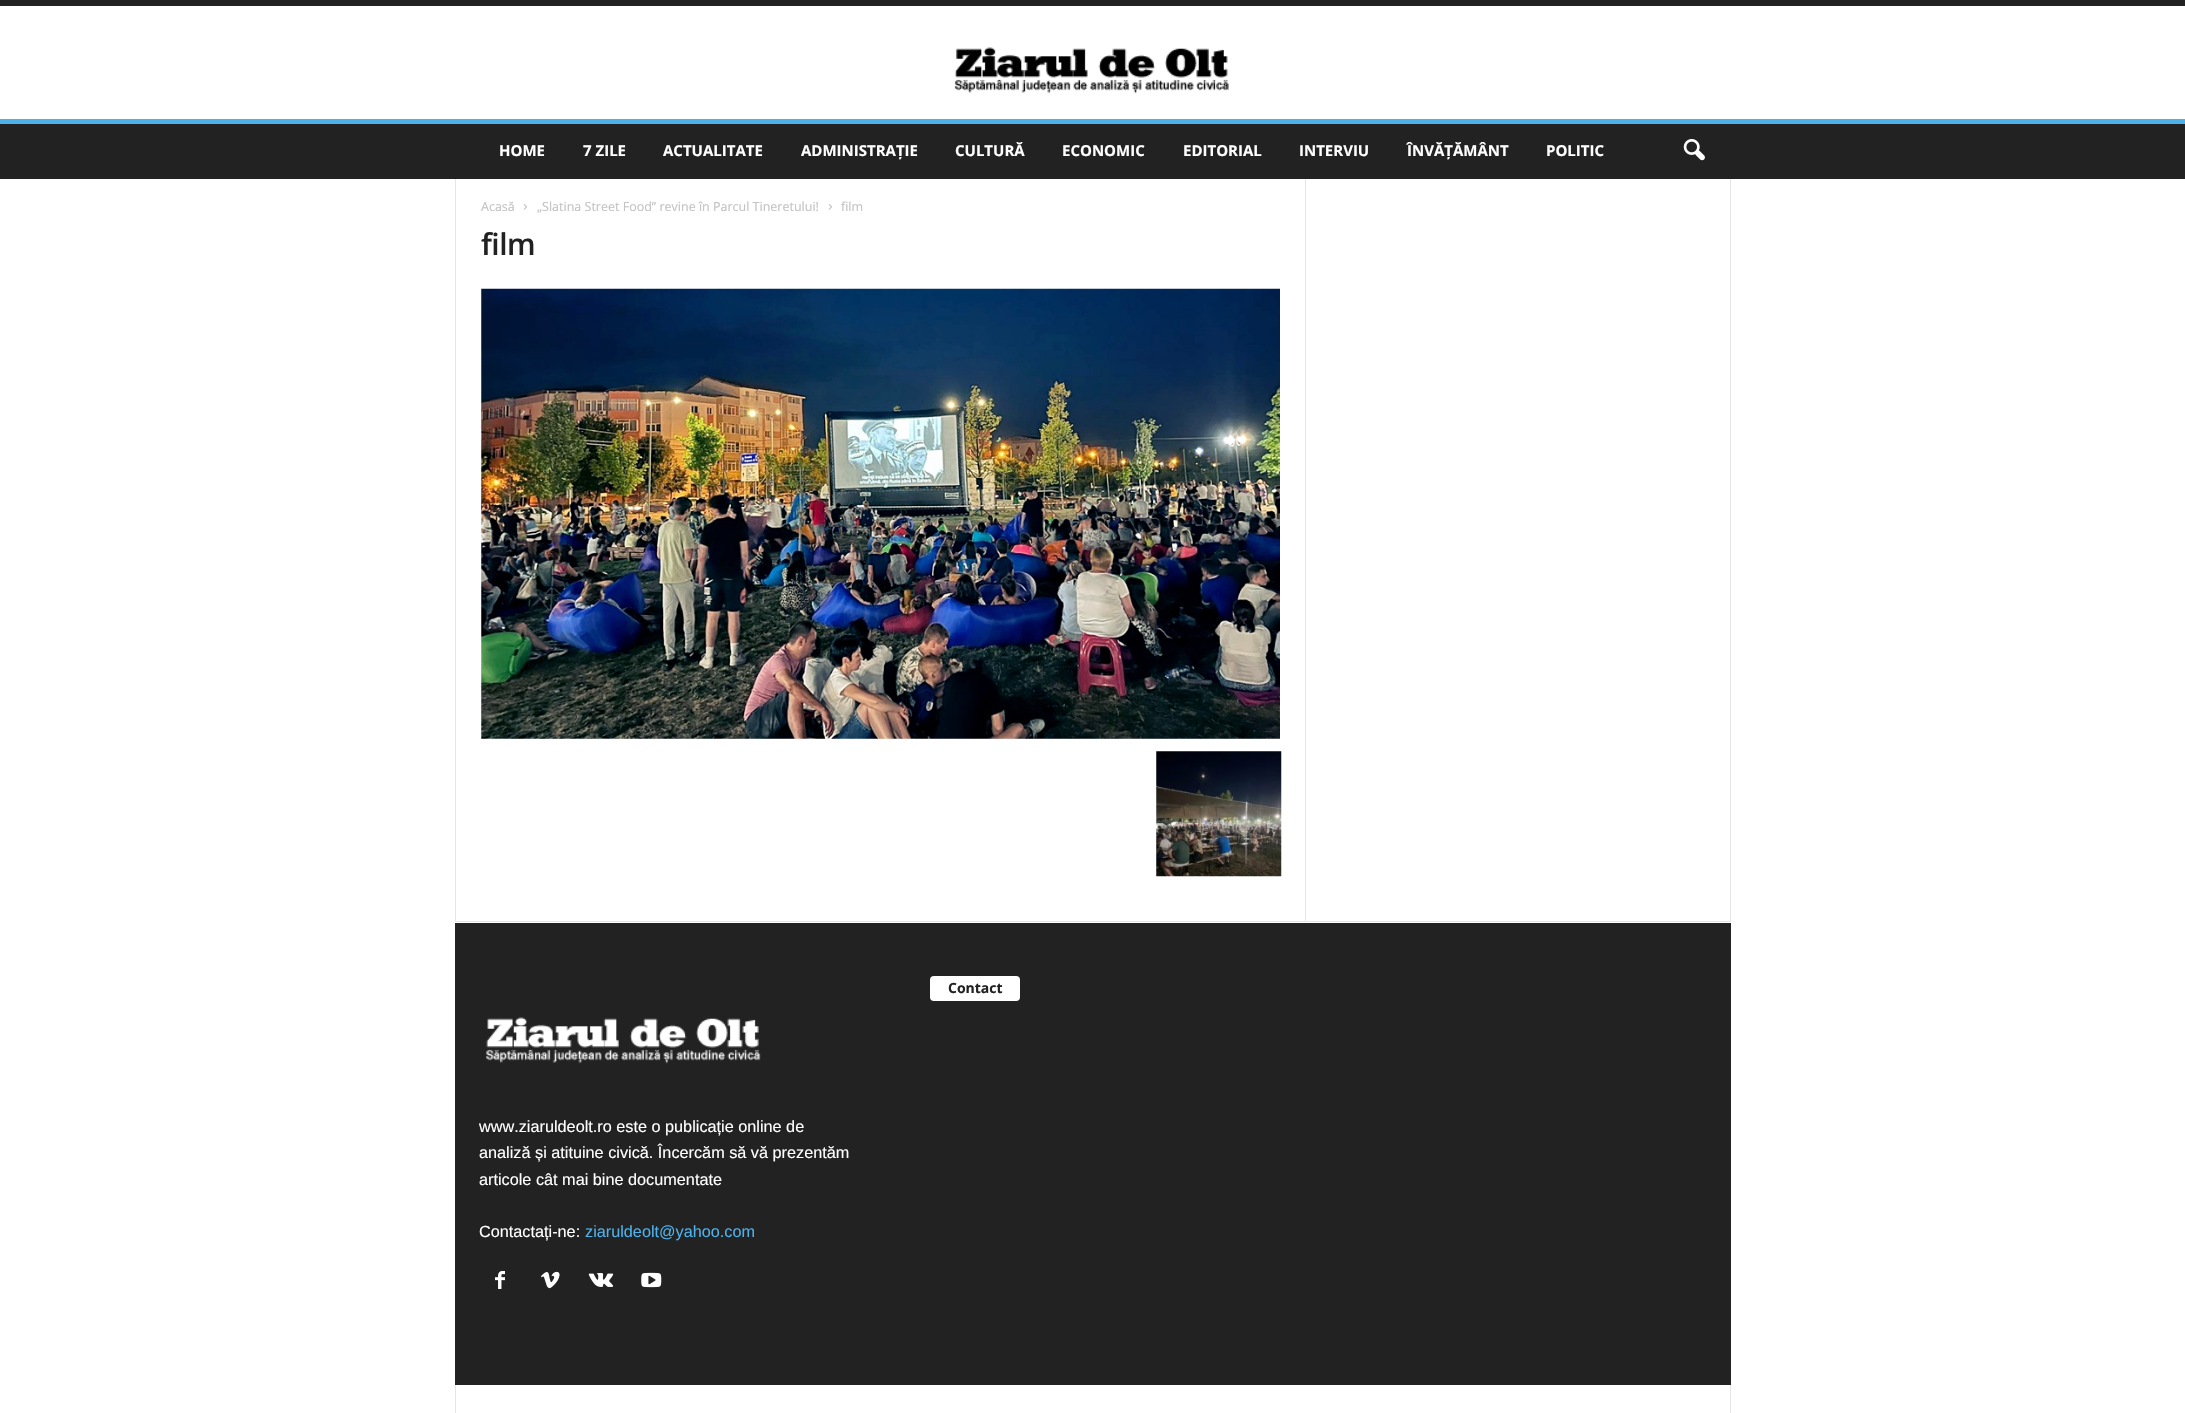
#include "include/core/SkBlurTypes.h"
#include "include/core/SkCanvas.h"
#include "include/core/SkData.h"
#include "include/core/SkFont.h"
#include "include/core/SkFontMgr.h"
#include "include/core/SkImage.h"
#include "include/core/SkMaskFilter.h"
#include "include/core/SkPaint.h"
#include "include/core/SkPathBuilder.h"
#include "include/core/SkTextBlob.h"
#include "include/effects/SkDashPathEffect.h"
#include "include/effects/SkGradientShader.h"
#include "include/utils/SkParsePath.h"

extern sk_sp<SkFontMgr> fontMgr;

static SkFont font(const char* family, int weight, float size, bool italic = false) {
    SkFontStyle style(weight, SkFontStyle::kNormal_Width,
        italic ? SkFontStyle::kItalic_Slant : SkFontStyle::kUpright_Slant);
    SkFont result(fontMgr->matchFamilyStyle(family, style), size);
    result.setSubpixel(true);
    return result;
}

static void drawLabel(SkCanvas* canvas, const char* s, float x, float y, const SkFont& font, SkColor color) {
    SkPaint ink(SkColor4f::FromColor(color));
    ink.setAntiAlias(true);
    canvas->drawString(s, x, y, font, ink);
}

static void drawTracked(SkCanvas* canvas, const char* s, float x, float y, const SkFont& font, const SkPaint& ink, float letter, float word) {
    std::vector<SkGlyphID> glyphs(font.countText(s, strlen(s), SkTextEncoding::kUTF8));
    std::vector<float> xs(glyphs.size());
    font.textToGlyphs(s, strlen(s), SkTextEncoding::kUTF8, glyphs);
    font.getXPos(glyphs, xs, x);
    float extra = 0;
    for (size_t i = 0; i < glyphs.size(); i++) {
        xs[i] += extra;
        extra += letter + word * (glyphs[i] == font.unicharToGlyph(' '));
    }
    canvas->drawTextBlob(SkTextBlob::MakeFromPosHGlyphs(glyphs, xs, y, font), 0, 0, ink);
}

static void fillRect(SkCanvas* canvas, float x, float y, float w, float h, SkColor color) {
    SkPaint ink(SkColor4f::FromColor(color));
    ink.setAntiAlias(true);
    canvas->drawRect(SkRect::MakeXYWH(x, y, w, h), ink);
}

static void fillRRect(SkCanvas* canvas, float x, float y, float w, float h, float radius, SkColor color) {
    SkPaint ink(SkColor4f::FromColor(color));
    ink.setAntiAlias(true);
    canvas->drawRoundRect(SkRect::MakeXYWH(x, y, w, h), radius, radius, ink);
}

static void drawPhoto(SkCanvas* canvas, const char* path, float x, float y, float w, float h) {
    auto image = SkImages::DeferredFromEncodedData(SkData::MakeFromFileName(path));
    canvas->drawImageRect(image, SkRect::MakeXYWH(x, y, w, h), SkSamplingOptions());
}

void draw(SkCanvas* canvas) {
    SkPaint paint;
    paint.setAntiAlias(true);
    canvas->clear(0xFFFFFFFF);
    fillRect(canvas, 0, 0, 2185, 6, 0xFF222222);
    drawPhoto(canvas, "assets/img1.png", 954, 47, 275, 47);
    fillRect(canvas, 0, 124, 2185, 55, 0xFF222222);
    fillRect(canvas, 0, 119, 2185, 5, 0xFF4DB2EC);
    SkFont font1 = font("Open Sans", 700, 15);
    drawLabel(canvas, "HOME", 499, 156, font1, 0xFFFFFFFF);
    drawLabel(canvas, "7 ZILE", 583, 156, font1, 0xFFFFFFFF);
    drawLabel(canvas, "ACTUALITATE", 663, 156, font1, 0xFFFFFFFF);
    drawLabel(canvas, "ADMINISTRAȚIE", 801, 156, font1, 0xFFFFFFFF);
    drawLabel(canvas, "CULTURĂ", 955, 156, font1, 0xFFFFFFFF);
    drawLabel(canvas, "ECONOMIC", 1062, 156, font1, 0xFFFFFFFF);
    drawLabel(canvas, "EDITORIAL", 1183, 156, font1, 0xFFFFFFFF);
    drawLabel(canvas, "INTERVIU", 1299, 156, font1, 0xFFFFFFFF);
    drawLabel(canvas, "ÎNVĂȚĂMÂNT", 1407, 156, font1, 0xFFFFFFFF);
    drawLabel(canvas, "POLITIC", 1546, 156, font1, 0xFFFFFFFF);
    drawPhoto(canvas, "assets/img2.png", 1683, 139, 22, 22);
    fillRect(canvas, 455, 921, 1276, 1, 0xFFE6E6E6);
    fillRect(canvas, 455, 179, 1, 742, 0xFFE6E6E6);
    SkFont font2 = font("Open Sans", 400, 12.5f);
    drawLabel(canvas, "Acasă", 481, 211, font2, 0xFFC3C3C3);
    drawPhoto(canvas, "assets/img3.png", 523, 204, 4, 6);
    drawLabel(canvas, "„Slatina Street Food” revine în Parcul Tineretului!", 537, 211, font2, 0xFFC3C3C3);
    drawPhoto(canvas, "assets/img3.png", 828, 204, 4, 6);
    drawLabel(canvas, "film", 841, 211, font2, 0xFFC3C3C3);
    SkFont font3 = font("Open Sans", 600, 30);
    paint.setColor(0xFF222222);
    drawTracked(canvas, "film", 481, 255, font3, paint, -0.5f, 0);
    drawPhoto(canvas, "assets/img4.png", 481, 288, 799, 451);
    drawPhoto(canvas, "assets/img5.png", 1156, 751, 126, 126);
    fillRect(canvas, 1305, 179, 1, 742, 0xFFE6E6E6);
    fillRect(canvas, 1730, 179, 1, 742, 0xFFE6E6E6);
    fillRect(canvas, 455, 923, 1276, 462, 0xFF222222);
    fillRRect(canvas, 930, 976, 90, 25, 4, 0xFFFFFFFF);
    SkFont font4 = font("Open Sans", 700, 14);
    drawLabel(canvas, "Contact", 948, 993, font4, 0xFF222222);
    drawPhoto(canvas, "assets/img6.png", 486, 1017, 275, 47);
    SkFont font5 = font("Liberation Sans", 400, 16.25f);
    drawLabel(canvas, "www.ziaruldeolt.ro este o publicație online de", 479, 1132, font5, 0xFFFFFFFF);
    drawLabel(canvas, "analiză și atituine civică. Încercăm să vă prezentăm", 479, 1158, font5, 0xFFFFFFFF);
    drawLabel(canvas, "articole cât mai bine documentate", 479, 1185, font5, 0xFFFFFFFF);
    drawLabel(canvas, "Contactați-ne:", 479, 1237, font5, 0xFFFFFFFF);
    drawLabel(canvas, "ziaruldeolt@yahoo.com", 585, 1237, font5, 0xFF4DB2EC);
    drawPhoto(canvas, "assets/img7.png", 495, 1271, 10, 18);
    drawPhoto(canvas, "assets/img8.png", 541, 1271, 19, 18);
    drawPhoto(canvas, "assets/img9.png", 588, 1273, 26, 14);
    drawPhoto(canvas, "assets/img10.png", 641, 1272, 21, 16);
    fillRect(canvas, 455, 1385, 1, 28, 0xFFE6E6E6);
    fillRect(canvas, 1730, 1385, 1, 28, 0xFFE6E6E6);
}
